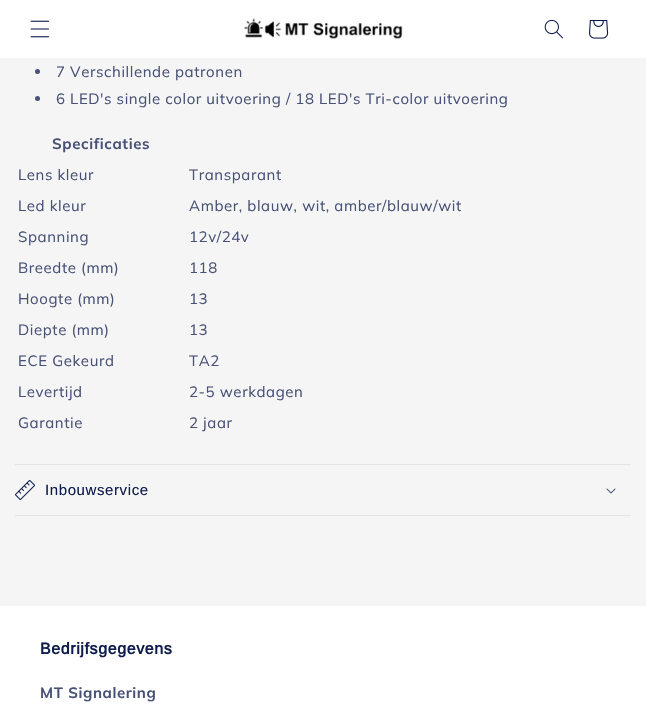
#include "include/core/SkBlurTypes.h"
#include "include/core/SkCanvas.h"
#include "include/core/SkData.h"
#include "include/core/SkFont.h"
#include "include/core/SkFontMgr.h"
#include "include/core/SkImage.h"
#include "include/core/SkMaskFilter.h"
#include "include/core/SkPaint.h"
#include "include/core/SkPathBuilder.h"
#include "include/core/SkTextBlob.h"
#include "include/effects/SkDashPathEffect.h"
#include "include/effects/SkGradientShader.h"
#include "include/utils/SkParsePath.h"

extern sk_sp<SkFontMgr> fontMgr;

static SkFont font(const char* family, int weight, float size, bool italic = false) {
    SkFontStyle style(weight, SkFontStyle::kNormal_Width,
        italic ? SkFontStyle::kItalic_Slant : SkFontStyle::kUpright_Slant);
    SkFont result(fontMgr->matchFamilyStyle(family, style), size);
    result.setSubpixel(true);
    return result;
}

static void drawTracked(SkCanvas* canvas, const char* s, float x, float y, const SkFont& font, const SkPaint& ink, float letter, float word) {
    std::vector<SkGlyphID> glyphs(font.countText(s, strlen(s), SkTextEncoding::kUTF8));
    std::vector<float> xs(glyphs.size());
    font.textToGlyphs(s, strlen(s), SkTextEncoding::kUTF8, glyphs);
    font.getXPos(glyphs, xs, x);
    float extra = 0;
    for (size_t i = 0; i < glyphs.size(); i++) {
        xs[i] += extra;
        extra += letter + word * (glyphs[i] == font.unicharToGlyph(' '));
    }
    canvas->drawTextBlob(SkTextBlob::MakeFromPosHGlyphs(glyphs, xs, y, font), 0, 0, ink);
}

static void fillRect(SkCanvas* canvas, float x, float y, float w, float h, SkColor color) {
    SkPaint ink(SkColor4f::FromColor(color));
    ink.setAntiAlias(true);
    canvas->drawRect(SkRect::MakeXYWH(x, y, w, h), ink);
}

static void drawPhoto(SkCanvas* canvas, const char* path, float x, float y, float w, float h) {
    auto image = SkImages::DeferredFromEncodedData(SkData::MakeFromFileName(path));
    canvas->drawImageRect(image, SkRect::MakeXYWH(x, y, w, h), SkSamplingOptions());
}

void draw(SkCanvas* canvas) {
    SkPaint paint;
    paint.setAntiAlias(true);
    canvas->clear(0xFFF5F5F5);
    fillRect(canvas, 0, 0, 646, 58, 0xFFFFFFFF);
    drawPhoto(canvas, "assets/img1.png", 30, 20, 20, 18);
    drawPhoto(canvas, "assets/img2.png", 244, 18, 159, 21);
    drawPhoto(canvas, "assets/img3.png", 544, 19, 19, 20);
    drawPhoto(canvas, "assets/img4.png", 589, 20, 20, 19);
    paint.setColor(0xFF485277);
    canvas->drawCircle(37.5f, 71.5f, 2.5f, paint);
    SkFont font1 = font("Muli", 400, 15);
    drawTracked(canvas, "7 Verschillende patronen", 56, 77, font1, paint, 0.6f, 0);
    canvas->drawCircle(37.5f, 98.5f, 2.5f, paint);
    drawTracked(canvas, "6 LED's single color uitvoering / 18 LED's Tri-color uitvoering", 56, 104, font1, paint, 0.6f, 0);
    SkFont font2 = font("Muli", 700, 15);
    drawTracked(canvas, "Specificaties", 52, 149, font2, paint, 0.6f, 0);
    drawTracked(canvas, "Lens kleur", 18, 180, font1, paint, 0.6f, 0);
    drawTracked(canvas, "Transparant", 189, 180, font1, paint, 0.6f, 0);
    drawTracked(canvas, "Led kleur", 18, 211, font1, paint, 0.6f, 0);
    drawTracked(canvas, "Amber, blauw, wit, amber/blauw/wit", 189, 211, font1, paint, 0.6f, 0);
    drawTracked(canvas, "Spanning", 18, 242, font1, paint, 0.6f, 0);
    drawTracked(canvas, "12v/24v", 189, 242, font1, paint, 0.6f, 0);
    drawTracked(canvas, "Breedte (mm)", 18, 273, font1, paint, 0.6f, 0);
    drawTracked(canvas, "118", 189, 273, font1, paint, 0.6f, 0);
    drawTracked(canvas, "Hoogte (mm)", 18, 304, font1, paint, 0.6f, 0);
    drawTracked(canvas, "13", 189, 304, font1, paint, 0.6f, 0);
    drawTracked(canvas, "Diepte (mm)", 18, 335, font1, paint, 0.6f, 0);
    drawTracked(canvas, "13", 189, 335, font1, paint, 0.6f, 0);
    drawTracked(canvas, "ECE Gekeurd", 18, 366, font1, paint, 0.6f, 0);
    drawTracked(canvas, "TA2", 189, 366, font1, paint, 0.6f, 0);
    drawTracked(canvas, "Levertijd", 18, 397, font1, paint, 0.6f, 0);
    drawTracked(canvas, "2-5 werkdagen", 189, 397, font1, paint, 0.6f, 0);
    drawTracked(canvas, "Garantie", 18, 428, font1, paint, 0.6f, 0);
    drawTracked(canvas, "2 jaar", 189, 428, font1, paint, 0.6f, 0);
    fillRect(canvas, 15, 464, 616, 1, 0xFFE3E4E8);
    fillRect(canvas, 15, 515, 616, 1, 0xFFE3E4E8);
    drawPhoto(canvas, "assets/img5.png", 15, 480, 20, 20);
    SkFont font3 = font("Arimo", 400, 15);
    paint.setColor(0xFF0E1B4D);
    drawTracked(canvas, "Inbouwservice", 45, 495, font3, paint, 0.6f, 0);
    drawPhoto(canvas, "assets/img6.png", 606, 488, 10, 6);
    fillRect(canvas, 0, 606, 646, 111, 0xFFFFFFFF);
    SkFont font4 = font("Arimo", 700, 16);
    drawTracked(canvas, "Bedrijfsgegevens", 40, 654, font4, paint, 0.6f, 0);
    paint.setColor(0xFF485277);
    drawTracked(canvas, "MT Signalering", 40, 698, font2, paint, 0.6f, 0);
}
